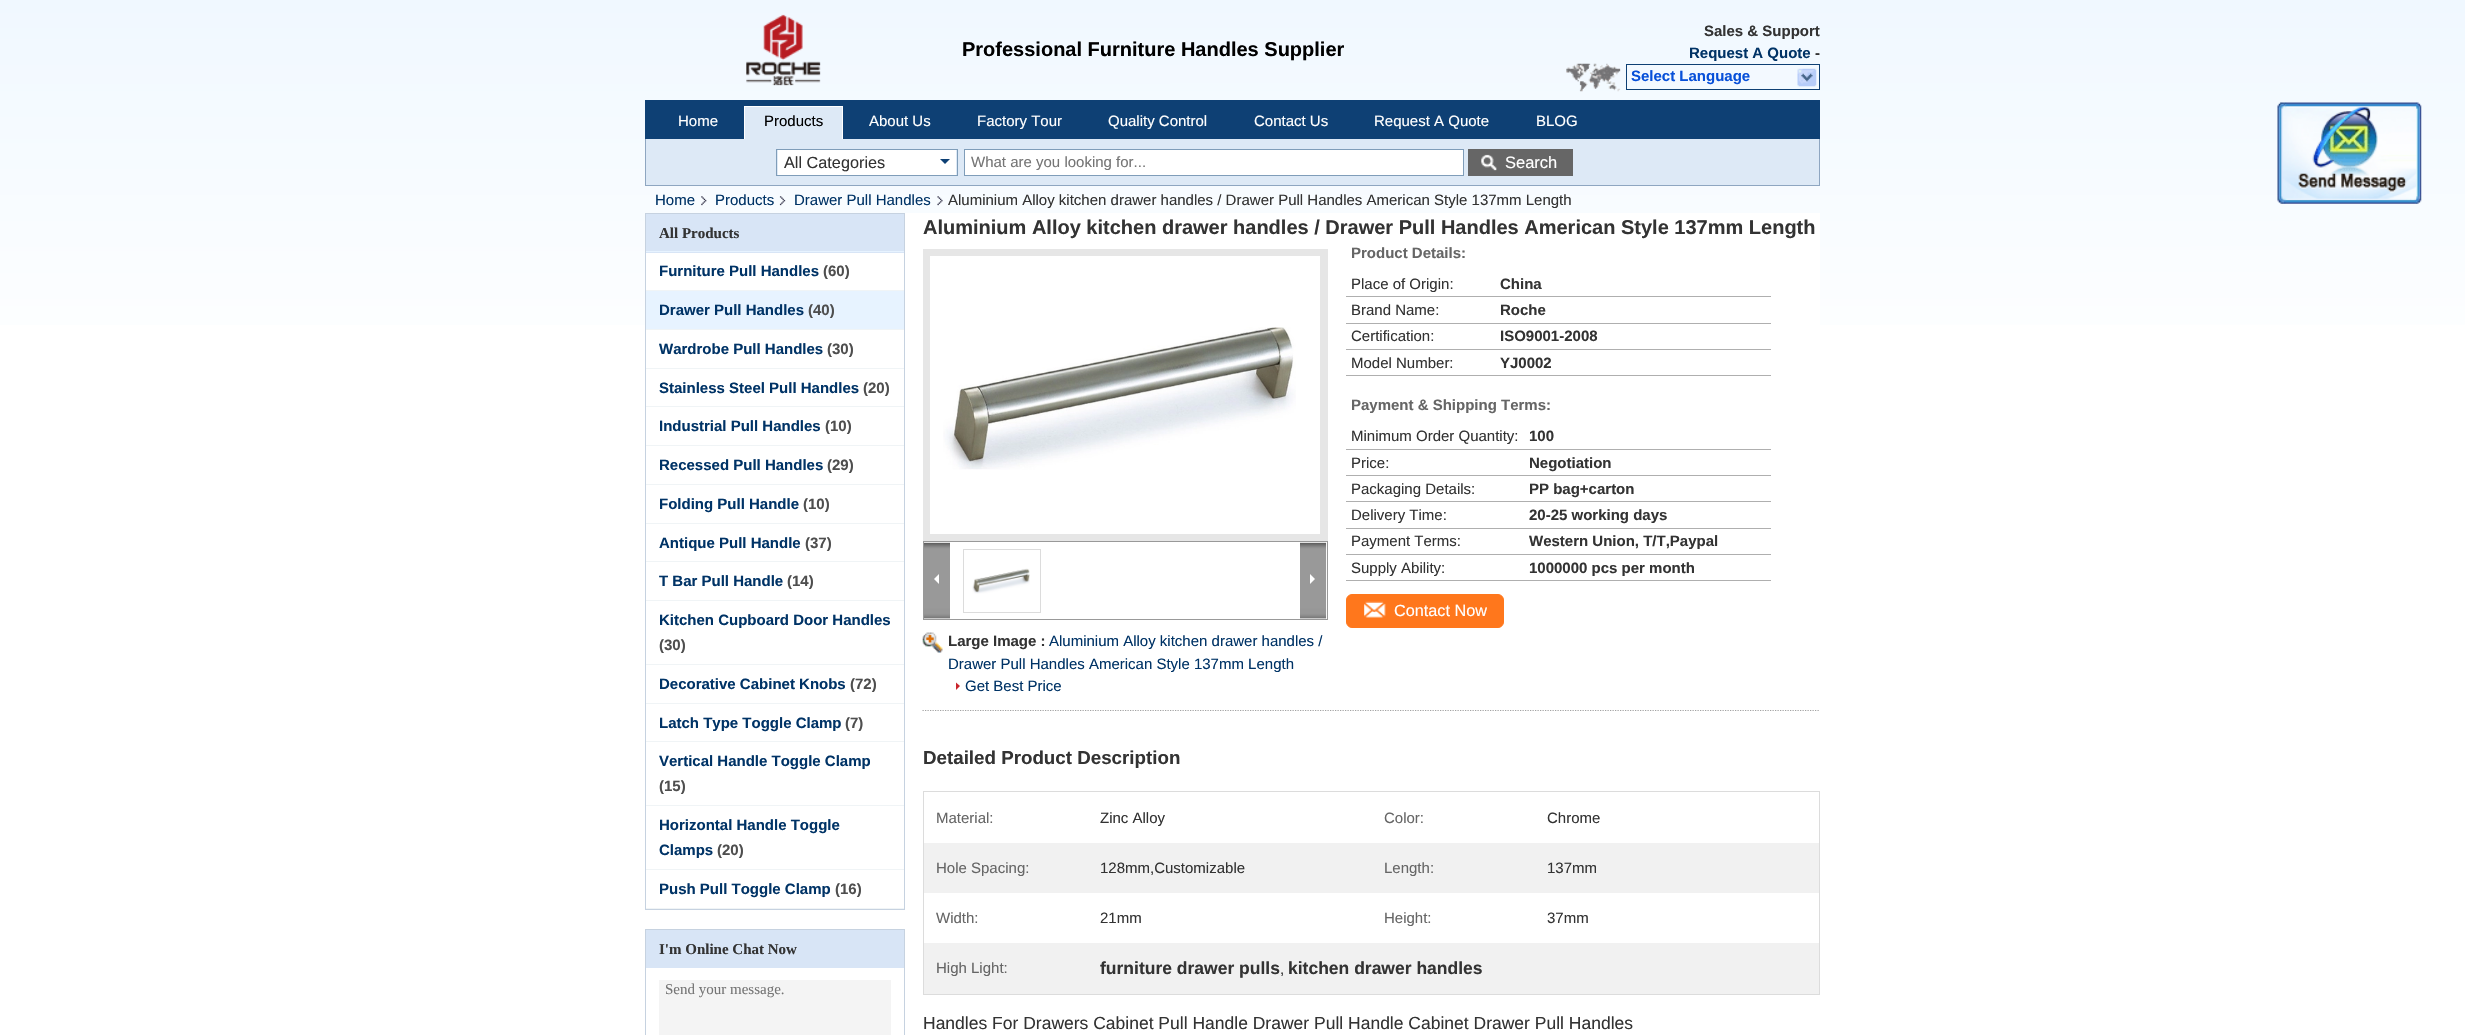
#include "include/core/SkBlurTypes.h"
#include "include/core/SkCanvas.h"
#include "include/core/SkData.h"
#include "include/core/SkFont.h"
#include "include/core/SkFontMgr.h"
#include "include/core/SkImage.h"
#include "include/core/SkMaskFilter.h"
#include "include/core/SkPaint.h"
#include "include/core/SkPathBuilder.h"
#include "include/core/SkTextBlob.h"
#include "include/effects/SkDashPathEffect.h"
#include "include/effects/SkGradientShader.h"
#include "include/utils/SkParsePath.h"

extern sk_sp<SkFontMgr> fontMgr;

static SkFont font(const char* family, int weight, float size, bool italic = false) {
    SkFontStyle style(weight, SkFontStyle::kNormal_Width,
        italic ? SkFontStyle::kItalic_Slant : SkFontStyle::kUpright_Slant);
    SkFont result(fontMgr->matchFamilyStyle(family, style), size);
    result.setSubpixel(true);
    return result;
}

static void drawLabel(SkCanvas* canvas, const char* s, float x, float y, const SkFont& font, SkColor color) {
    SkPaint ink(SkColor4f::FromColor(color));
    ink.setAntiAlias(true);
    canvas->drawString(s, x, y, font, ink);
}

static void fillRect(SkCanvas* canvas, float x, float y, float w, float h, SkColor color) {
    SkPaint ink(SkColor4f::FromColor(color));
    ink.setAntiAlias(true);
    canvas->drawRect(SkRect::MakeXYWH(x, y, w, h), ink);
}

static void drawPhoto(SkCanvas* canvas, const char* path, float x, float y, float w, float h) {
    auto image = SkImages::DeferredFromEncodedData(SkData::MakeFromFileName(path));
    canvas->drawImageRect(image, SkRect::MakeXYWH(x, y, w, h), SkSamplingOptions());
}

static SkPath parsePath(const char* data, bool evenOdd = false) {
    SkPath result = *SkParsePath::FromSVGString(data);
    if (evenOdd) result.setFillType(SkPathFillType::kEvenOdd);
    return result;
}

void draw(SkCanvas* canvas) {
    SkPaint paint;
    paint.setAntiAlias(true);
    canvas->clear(0xFFFFFFFF);
    {
        const SkColor colors[] = {0xFFF0F8FF, 0xFFFFFFFF, 0xFFFFFFFF};
        const float stops[] = {0, 0.1f, 1};
        const SkPoint ends[] = {{1232, 0}, {1233, 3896}};
        paint.setShader(SkGradientShader::MakeLinear(ends, colors, stops, 3, SkTileMode::kClamp));
        paint.setAlpha(255);
    }
    canvas->drawRect(SkRect::MakeXYWH(0, 0, 2465, 325), paint);
    drawPhoto(canvas, "assets/img1.png", 746, 14, 75, 72);
    SkFont font1 = font("Liberation Sans", 700, 20);
    drawLabel(canvas, "Professional Furniture Handles Supplier", 962, 56, font1, 0xFF000000);
    SkFont font2 = font("Liberation Sans", 700, 15);
    drawLabel(canvas, "Sales & Support", 1704, 36, font2, 0xFF333333);
    drawLabel(canvas, "Request A Quote", 1689, 58, font2, 0xFF003366);
    drawLabel(canvas, "-", 1815, 58, font2, 0xFF333333);
    drawPhoto(canvas, "assets/img2.png", 1566, 63, 55, 29);
    paint.setStroke(true);
    paint.setStrokeWidth(1);
    paint.setShader(nullptr);
    paint.setColor(0xFF0E4074);
    canvas->drawRect(SkRect::MakeXYWH(1626.5f, 64.5f, 193, 25), paint);
    drawLabel(canvas, "Select Language", 1631, 81, font2, 0xFF0750D9);
    drawPhoto(canvas, "assets/img3.png", 1797, 68, 20, 19);
    fillRect(canvas, 1819, 138, 1, 48, 0xFF8EA6C1);
    fillRect(canvas, 645, 185, 1175, 1, 0xFF8EA6C1);
    fillRect(canvas, 645, 138, 1, 48, 0xFF8EA6C1);
    fillRect(canvas, 645, 100, 1175, 39, 0xFF0E4074);
    SkFont font3 = font("Liberation Sans", 400, 15);
    drawLabel(canvas, "Home", 678, 126, font3, 0xFFFFFFFF);
    fillRect(canvas, 745, 107, 97, 32, 0xFFDDE9F6);
    fillRect(canvas, 646, 139, 1173, 46, 0xFFDDE9F6);
    canvas->save();
    canvas->clipRect(SkRect::MakeXYWH(645, 100, 1175, 39));
    paint.setColor(0xFFFFFFFF);
    canvas->drawRect(SkRect::MakeXYWH(744.5f, 106.5f, 98, 49), paint);
    canvas->restore();
    drawLabel(canvas, "Products", 764, 126, font3, 0xFF000000);
    drawLabel(canvas, "About Us", 869, 126, font3, 0xFFFFFFFF);
    drawLabel(canvas, "Factory Tour", 977, 126, font3, 0xFFFFFFFF);
    drawLabel(canvas, "Quality Control", 1108, 126, font3, 0xFFFFFFFF);
    drawLabel(canvas, "Contact Us", 1254, 126, font3, 0xFFFFFFFF);
    drawLabel(canvas, "Request A Quote", 1374, 126, font3, 0xFFFFFFFF);
    drawLabel(canvas, "BLOG", 1536, 126, font3, 0xFFFFFFFF);
    paint.setColor(0xFF7F9DB9);
    canvas->drawRect(SkRect::MakeXYWH(776.5f, 149.5f, 181, 26), paint);
    fillRect(canvas, 778, 150, 178, 25, 0xFFFFFFFF);
    SkFont font4 = font("Liberation Sans", 400, 16.25f);
    drawLabel(canvas, "All Categories", 784, 168, font4, 0xFF333333);
    paint.setStroke(false);
    paint.setColor(0xFF0E4074);
    canvas->drawPath(parsePath("M940 159H950L945 164Z"), paint);
    paint.setColor(0xFFFFFFFF);
    canvas->drawRect(SkRect::MakeXYWH(964.5f, 149.5f, 499, 26), paint);
    paint.setStroke(true);
    paint.setColor(0xFF7F9DB9);
    canvas->drawRect(SkRect::MakeXYWH(964.5f, 149.5f, 499, 26), paint);
    drawLabel(canvas, "What are you looking for...", 971, 167, font3, 0xFF757575);
    fillRect(canvas, 1468, 149, 105, 27, 0xFF666666);
    drawPhoto(canvas, "assets/img4.png", 1481, 154, 16, 17);
    SkFont font5 = font("Liberation Sans", 400, 16.5f);
    drawLabel(canvas, "Search", 1505, 168, font5, 0xFFFFFFFF);
    drawLabel(canvas, "Home", 655, 205, font3, 0xFF003366);
    drawPhoto(canvas, "assets/img5.png", 701, 196, 6, 10);
    drawLabel(canvas, "Products", 715, 205, font3, 0xFF003366);
    drawPhoto(canvas, "assets/img6.png", 779, 196, 7, 10);
    drawLabel(canvas, "Drawer Pull Handles", 794, 205, font3, 0xFF003366);
    drawPhoto(canvas, "assets/img7.png", 937, 196, 6, 10);
    drawLabel(canvas, "Aluminium Alloy kitchen drawer handles / Drawer Pull Handles American Style 137mm Length", 948, 205, font3, 0xFF333333);
    fillRect(canvas, 645, 213, 1175, 112, 0xFFFFFFFF);
    paint.setColor(0xFFC6D2E0);
    canvas->drawRect(SkRect::MakeXYWH(645.5f, 213.5f, 259, 696), paint);
    fillRect(canvas, 646, 214, 258, 39, 0xFFD8E5F6);
    fillRect(canvas, 646, 251, 258, 1, 0xFFE7F3FF);
    SkFont font6 = font("Liberation Serif", 700, 15);
    drawLabel(canvas, "All Products", 659, 238, font6, 0xFF333333);
    fillRect(canvas, 646, 290, 258, 1, 0xFFF0F4F6);
    drawLabel(canvas, "Furniture Pull Handles", 659, 276, font2, 0xFF003366);
    drawLabel(canvas, "(60)", 823, 276, font2, 0xFF4E4E4E);
    fillRect(canvas, 646, 291, 258, 38, 0xFFE7F3FF);
    fillRect(canvas, 646, 329, 258, 1, 0xFFF0F4F6);
    drawLabel(canvas, "Drawer Pull Handles", 659, 315, font2, 0xFF003366);
    drawLabel(canvas, "(40)", 808, 315, font2, 0xFF4E4E4E);
    fillRect(canvas, 646, 368, 258, 1, 0xFFF0F4F6);
    drawLabel(canvas, "Wardrobe Pull Handles", 659, 354, font2, 0xFF003366);
    drawLabel(canvas, "(30)", 827, 354, font2, 0xFF4E4E4E);
    fillRect(canvas, 646, 406, 258, 1, 0xFFF0F4F6);
    drawLabel(canvas, "Stainless Steel Pull Handles", 659, 393, font2, 0xFF003366);
    drawLabel(canvas, "(20)", 863, 393, font2, 0xFF4E4E4E);
    fillRect(canvas, 646, 445, 258, 1, 0xFFF0F4F6);
    drawLabel(canvas, "Industrial Pull Handles", 659, 431, font2, 0xFF003366);
    drawLabel(canvas, "(10)", 825, 431, font2, 0xFF4E4E4E);
    fillRect(canvas, 646, 484, 258, 1, 0xFFF0F4F6);
    drawLabel(canvas, "Recessed Pull Handles", 659, 470, font2, 0xFF003366);
    drawLabel(canvas, "(29)", 827, 470, font2, 0xFF4E4E4E);
    fillRect(canvas, 646, 523, 258, 1, 0xFFF0F4F6);
    drawLabel(canvas, "Folding Pull Handle", 659, 509, font2, 0xFF003366);
    drawLabel(canvas, "(10)", 803, 509, font2, 0xFF4E4E4E);
    fillRect(canvas, 646, 561, 258, 1, 0xFFF0F4F6);
    drawLabel(canvas, "Antique Pull Handle", 659, 548, font2, 0xFF003366);
    drawLabel(canvas, "(37)", 805, 548, font2, 0xFF4E4E4E);
    fillRect(canvas, 646, 600, 258, 1, 0xFFF0F4F6);
    drawLabel(canvas, "T Bar Pull Handle", 659, 586, font2, 0xFF003366);
    drawLabel(canvas, "(14)", 787, 586, font2, 0xFF4E4E4E);
    fillRect(canvas, 646, 664, 258, 1, 0xFFF0F4F6);
    drawLabel(canvas, "Kitchen Cupboard Door Handles", 659, 625, font2, 0xFF003366);
    drawLabel(canvas, "(30)", 659, 650, font2, 0xFF4E4E4E);
    fillRect(canvas, 646, 703, 258, 1, 0xFFF0F4F6);
    drawLabel(canvas, "Decorative Cabinet Knobs", 659, 689, font2, 0xFF003366);
    drawLabel(canvas, "(72)", 850, 689, font2, 0xFF4E4E4E);
    fillRect(canvas, 646, 741, 258, 1, 0xFFF0F4F6);
    drawLabel(canvas, "Latch Type Toggle Clamp", 659, 728, font2, 0xFF003366);
    drawLabel(canvas, "(7)", 845, 728, font2, 0xFF4E4E4E);
    fillRect(canvas, 646, 805, 258, 1, 0xFFF0F4F6);
    drawLabel(canvas, "Vertical Handle Toggle Clamp", 659, 766, font2, 0xFF003366);
    drawLabel(canvas, "(15)", 659, 791, font2, 0xFF4E4E4E);
    fillRect(canvas, 646, 869, 258, 1, 0xFFF0F4F6);
    drawLabel(canvas, "Horizontal Handle Toggle", 659, 830, font2, 0xFF003366);
    drawLabel(canvas, "Clamps", 659, 855, font2, 0xFF003366);
    drawLabel(canvas, "(20)", 717, 855, font2, 0xFF4E4E4E);
    fillRect(canvas, 646, 908, 258, 1, 0xFFF0F4F6);
    drawLabel(canvas, "Push Pull Toggle Clamp", 659, 894, font2, 0xFF003366);
    drawLabel(canvas, "(16)", 835, 894, font2, 0xFF4E4E4E);
    canvas->drawRect(SkRect::MakeXYWH(645.5f, 929.5f, 259, 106), paint);
    fillRect(canvas, 646, 930, 258, 38, 0xFFD8E5F6);
    drawLabel(canvas, "I'm Online Chat Now", 659, 954, font6, 0xFF333333);
    fillRect(canvas, 659, 980, 232, 55, 0xFFF4F4F4);
    SkFont font7 = font("Liberation Serif", 400, 15);
    drawLabel(canvas, "Send your message.", 665, 994, font7, 0xFF757575);
    drawLabel(canvas, "Aluminium Alloy kitchen drawer handles / Drawer Pull Handles American Style 137mm Length", 923, 234, font1, 0xFF333333);
    paint.setStrokeWidth(1.2f);
    paint.setColor(0xFFA2A2A2);
    paint.setPathEffect(SkDashPathEffect::Make({{1.25f, 1.25f}}, 0));
    canvas->drawPath(parsePath("M922.5 710.5H1820"), paint);
    paint.setPathEffect(nullptr);
    drawLabel(canvas, "Product Details:", 1351, 258, font2, 0xFF666666);
    drawLabel(canvas, "Place of Origin:", 1351, 289, font3, 0xFF333333);
    fillRect(canvas, 1346, 296, 425, 1, 0xFFAFAFAF);
    drawLabel(canvas, "China", 1500, 289, font2, 0xFF333333);
    drawLabel(canvas, "Brand Name:", 1351, 315, font3, 0xFF333333);
    fillRect(canvas, 1346, 323, 425, 1, 0xFFAFAFAF);
    drawLabel(canvas, "Roche", 1500, 315, font2, 0xFF333333);
    drawLabel(canvas, "Certification:", 1351, 341, font3, 0xFF333333);
    fillRect(canvas, 1346, 349, 425, 1, 0xFFAFAFAF);
    drawLabel(canvas, "ISO9001-2008", 1500, 341, font2, 0xFF333333);
    drawLabel(canvas, "Model Number:", 1351, 368, font3, 0xFF333333);
    fillRect(canvas, 1346, 375, 425, 1, 0xFFAFAFAF);
    drawLabel(canvas, "YJ0002", 1500, 368, font2, 0xFF333333);
    drawLabel(canvas, "Payment & Shipping Terms:", 1351, 410, font2, 0xFF666666);
    drawLabel(canvas, "Minimum Order Quantity:", 1351, 441, font3, 0xFF333333);
    fillRect(canvas, 1346, 449, 425, 1, 0xFFAFAFAF);
    drawLabel(canvas, "100", 1529, 441, font2, 0xFF333333);
    drawLabel(canvas, "Price:", 1351, 468, font3, 0xFF333333);
    fillRect(canvas, 1346, 475, 425, 1, 0xFFAFAFAF);
    drawLabel(canvas, "Negotiation", 1529, 468, font2, 0xFF333333);
    drawLabel(canvas, "Packaging Details:", 1351, 494, font3, 0xFF333333);
    fillRect(canvas, 1346, 501, 425, 1, 0xFFAFAFAF);
    drawLabel(canvas, "PP bag+carton", 1529, 494, font2, 0xFF333333);
    drawLabel(canvas, "Delivery Time:", 1351, 520, font3, 0xFF333333);
    fillRect(canvas, 1346, 528, 425, 1, 0xFFAFAFAF);
    drawLabel(canvas, "20-25 working days", 1529, 520, font2, 0xFF333333);
    drawLabel(canvas, "Payment Terms:", 1351, 546, font3, 0xFF333333);
    fillRect(canvas, 1346, 554, 425, 1, 0xFFAFAFAF);
    drawLabel(canvas, "Western Union, T/T,Paypal", 1529, 546, font2, 0xFF333333);
    drawLabel(canvas, "Supply Ability:", 1351, 573, font3, 0xFF333333);
    fillRect(canvas, 1346, 580, 425, 1, 0xFFAFAFAF);
    drawLabel(canvas, "1000000 pcs per month", 1529, 573, font2, 0xFF333333);
    paint.setStroke(false);
    paint.setColor(0xFFFF771C);
    canvas->drawRoundRect(SkRect::MakeXYWH(1346.5f, 594.5f, 157, 33), 5.5f, 5.5f, paint);
    paint.setStroke(true);
    paint.setStrokeWidth(1);
    canvas->drawRoundRect(SkRect::MakeXYWH(1346.5f, 594.5f, 157, 33), 5.5f, 5.5f, paint);
    drawPhoto(canvas, "assets/img8.png", 1364, 601, 22, 17);
    drawLabel(canvas, "Contact Now", 1394, 616, font4, 0xFFFFFFFF);
    paint.setStrokeWidth(8);
    paint.setColor(0xFFE6E6E6);
    canvas->drawRect(SkRect::MakeXYWH(927, 253, 397, 284), paint);
    fillRect(canvas, 930, 256, 390, 278, 0xFFFFFFFF);
    drawPhoto(canvas, "assets/img9.png", 943, 327, 353, 143);
    paint.setStrokeWidth(1);
    paint.setColor(0xFF999999);
    canvas->drawRect(SkRect::MakeXYWH(923.5f, 541.5f, 404, 78), paint);
    drawPhoto(canvas, "assets/img10.png", 924, 542, 26, 77);
    paint.setStroke(false);
    paint.setColor(0xFFFFFFFF);
    canvas->drawPath(parsePath("M939 574V584L934 579Z"), paint);
    paint.setStroke(true);
    paint.setColor(0xFFDCDCDC);
    canvas->drawRect(SkRect::MakeXYWH(963.5f, 549.5f, 77, 63), paint);
    drawPhoto(canvas, "assets/img11.png", 972, 568, 58, 26);
    drawPhoto(canvas, "assets/img12.png", 1300, 542, 27, 77);
    paint.setStroke(false);
    paint.setColor(0xFFFFFFFF);
    canvas->drawPath(parsePath("M1310 584V574L1315 579Z"), paint);
    drawPhoto(canvas, "assets/img13.png", 922, 632, 21, 21);
    drawLabel(canvas, "Large Image :", 948, 646, font2, 0xFF333333);
    drawLabel(canvas, "Aluminium Alloy kitchen drawer handles /", 1049, 646, font3, 0xFF003366);
    drawLabel(canvas, "Drawer Pull Handles American Style 137mm Length", 948, 669, font3, 0xFF003366);
    paint.setColor(0xFFC9242B);
    canvas->drawPath(parsePath("M956 690V682.5L960 686Z"), paint);
    drawLabel(canvas, "Get Best Price", 965, 691, font3, 0xFF003366);
    SkFont font8 = font("Liberation Sans", 700, 18.75f);
    drawLabel(canvas, "Detailed Product Description", 923, 764, font8, 0xFF333333);
    paint.setStroke(true);
    paint.setColor(0xFFDCDCDC);
    canvas->drawRect(SkRect::MakeXYWH(923.5f, 791.5f, 896, 203), paint);
    drawLabel(canvas, "Material:", 936, 823, font3, 0xFF666666);
    drawLabel(canvas, "Zinc Alloy", 1100, 823, font3, 0xFF333333);
    drawLabel(canvas, "Color:", 1384, 823, font3, 0xFF666666);
    drawLabel(canvas, "Chrome", 1547, 823, font3, 0xFF333333);
    fillRect(canvas, 924, 843, 895, 50, 0xFFF1F1F1);
    drawLabel(canvas, "Hole Spacing:", 936, 873, font3, 0xFF666666);
    drawLabel(canvas, "128mm,Customizable", 1100, 873, font3, 0xFF333333);
    drawLabel(canvas, "Length:", 1384, 873, font3, 0xFF666666);
    drawLabel(canvas, "137mm", 1547, 873, font3, 0xFF333333);
    drawLabel(canvas, "Width:", 936, 923, font3, 0xFF666666);
    drawLabel(canvas, "21mm", 1100, 923, font3, 0xFF333333);
    drawLabel(canvas, "Height:", 1384, 923, font3, 0xFF666666);
    drawLabel(canvas, "37mm", 1547, 923, font3, 0xFF333333);
    fillRect(canvas, 924, 943, 895, 51, 0xFFF1F1F1);
    drawLabel(canvas, "High Light:", 936, 973, font3, 0xFF666666);
    SkFont font9 = font("Liberation Sans", 700, 17.5f);
    drawLabel(canvas, "furniture drawer pulls", 1100, 974, font9, 0xFF333333);
    drawLabel(canvas, ",", 1280, 974, font3, 0xFF333333);
    drawLabel(canvas, "kitchen drawer handles", 1288, 974, font9, 0xFF333333);
    SkFont font10 = font("Liberation Sans", 400, 17.5f);
    drawLabel(canvas, "Handles For Drawers Cabinet Pull Handle Drawer Pull Handle Cabinet Drawer Pull Handles", 923, 1029, font10, 0xFF333333);
    drawPhoto(canvas, "assets/img14.png", 2277, 102, 145, 102);
}
